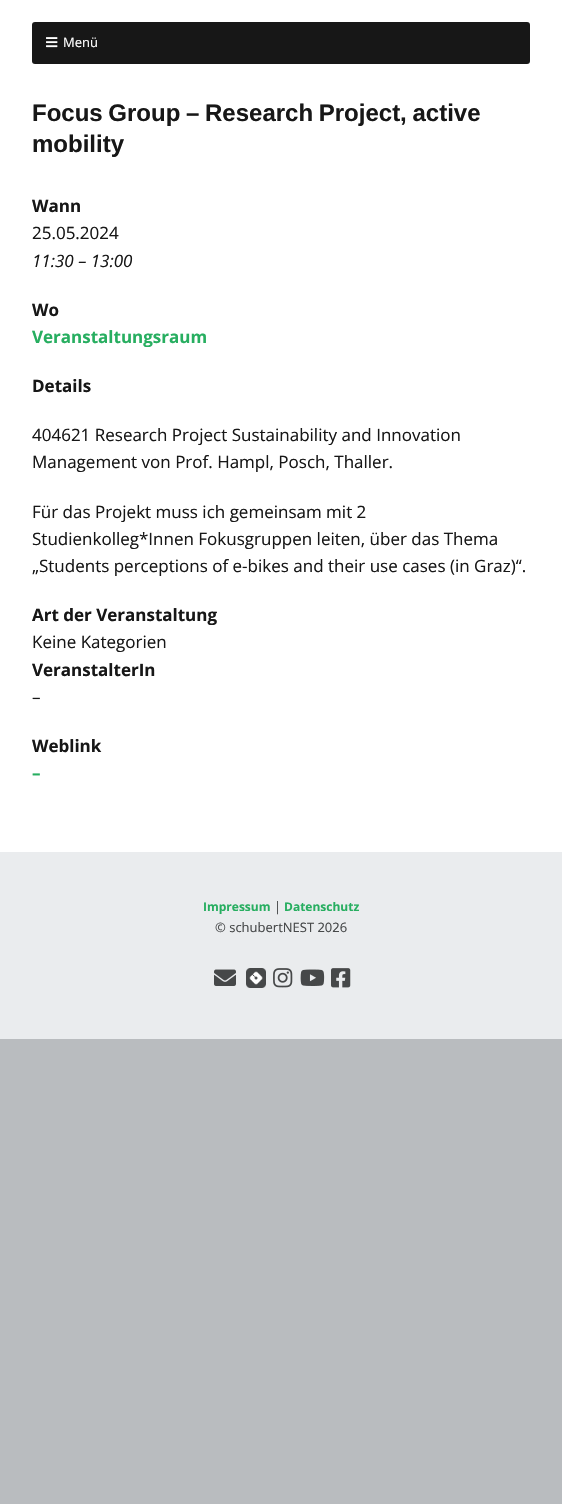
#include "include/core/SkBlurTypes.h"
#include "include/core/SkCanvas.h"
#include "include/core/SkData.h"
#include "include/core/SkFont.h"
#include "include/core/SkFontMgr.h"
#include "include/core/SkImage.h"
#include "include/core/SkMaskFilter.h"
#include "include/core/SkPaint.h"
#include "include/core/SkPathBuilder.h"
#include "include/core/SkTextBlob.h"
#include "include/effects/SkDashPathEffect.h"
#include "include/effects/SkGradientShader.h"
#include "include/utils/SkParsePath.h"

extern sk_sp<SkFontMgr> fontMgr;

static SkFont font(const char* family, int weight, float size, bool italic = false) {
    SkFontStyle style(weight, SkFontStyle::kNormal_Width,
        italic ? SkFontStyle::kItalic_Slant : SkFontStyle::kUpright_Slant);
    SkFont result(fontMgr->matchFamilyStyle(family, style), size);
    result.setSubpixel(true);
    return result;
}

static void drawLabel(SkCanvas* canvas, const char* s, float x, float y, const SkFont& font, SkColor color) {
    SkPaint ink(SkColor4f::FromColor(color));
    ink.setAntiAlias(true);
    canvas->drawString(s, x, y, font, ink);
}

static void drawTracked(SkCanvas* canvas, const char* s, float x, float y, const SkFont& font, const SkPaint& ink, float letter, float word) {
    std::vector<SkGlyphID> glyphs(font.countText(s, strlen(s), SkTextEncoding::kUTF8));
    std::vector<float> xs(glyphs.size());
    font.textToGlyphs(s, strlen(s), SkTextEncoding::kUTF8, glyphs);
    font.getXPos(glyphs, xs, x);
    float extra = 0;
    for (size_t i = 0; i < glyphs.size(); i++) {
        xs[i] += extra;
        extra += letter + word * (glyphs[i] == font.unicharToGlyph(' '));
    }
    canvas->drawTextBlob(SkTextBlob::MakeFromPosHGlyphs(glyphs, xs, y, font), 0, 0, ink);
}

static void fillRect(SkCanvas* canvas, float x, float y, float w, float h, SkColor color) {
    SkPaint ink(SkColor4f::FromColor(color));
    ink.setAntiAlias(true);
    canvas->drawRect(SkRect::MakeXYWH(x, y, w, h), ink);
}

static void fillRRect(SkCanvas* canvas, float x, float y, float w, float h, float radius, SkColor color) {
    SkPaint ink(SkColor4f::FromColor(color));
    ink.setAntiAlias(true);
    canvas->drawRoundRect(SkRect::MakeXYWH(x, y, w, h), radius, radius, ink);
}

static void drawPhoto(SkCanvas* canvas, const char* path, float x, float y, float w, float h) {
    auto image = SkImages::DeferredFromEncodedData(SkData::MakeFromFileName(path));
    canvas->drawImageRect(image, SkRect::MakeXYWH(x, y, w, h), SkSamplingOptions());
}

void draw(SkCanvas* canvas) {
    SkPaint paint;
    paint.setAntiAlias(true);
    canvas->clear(0xFFB9BCBF);
    fillRect(canvas, 0, 0, 562, 852, 0xFFFFFFFF);
    fillRRect(canvas, 32, 22, 498, 42, 3, 0xFF171717);
    drawPhoto(canvas, "assets/img1.png", 46, 37, 12, 11);
    SkFont font1 = font("Open Sans", 400, 13);
    drawLabel(canvas, "Menü", 63, 47, font1, 0xFFFFFFFF);
    SkFont font2 = font("Liberation Sans", 700, 24);
    paint.setColor(0xFF171717);
    drawTracked(canvas, "Focus Group – Research Project, active", 32, 121, font2, paint, 0, -1);
    drawLabel(canvas, "mobility", 32, 152, font2, 0xFF171717);
    SkFont font3 = font("Open Sans", 700, 17);
    drawLabel(canvas, "Wann", 32, 212, font3, 0xFF171717);
    SkFont font4 = font("Open Sans", 400, 17);
    drawLabel(canvas, "25.05.2024", 32, 239, font4, 0xFF171717);
    SkFont font5 = font("Open Sans", 400, 17, true);
    drawLabel(canvas, "11:30 – 13:00", 32, 267, font5, 0xFF171717);
    drawLabel(canvas, "Wo", 32, 316, font3, 0xFF171717);
    drawLabel(canvas, "Veranstaltungsraum", 32, 343, font3, 0xFF27AE60);
    drawLabel(canvas, "Details", 32, 392, font3, 0xFF171717);
    drawLabel(canvas, "404621 Research Project Sustainability and Innovation", 32, 441, font4, 0xFF171717);
    drawLabel(canvas, "Management von Prof. Hampl, Posch, Thaller.", 32, 468, font4, 0xFF171717);
    drawLabel(canvas, "Für das Projekt muss ich gemeinsam mit 2", 32, 518, font4, 0xFF171717);
    drawLabel(canvas, "Studienkolleg*Innen Fokusgruppen leiten, über das Thema", 32, 545, font4, 0xFF171717);
    drawLabel(canvas, "„Students perceptions of e-bikes and their use cases (in Graz)“.", 32, 572, font4, 0xFF171717);
    drawLabel(canvas, "Art der Veranstaltung", 32, 621, font3, 0xFF171717);
    drawLabel(canvas, "Keine Kategorien", 32, 648, font4, 0xFF171717);
    drawLabel(canvas, "VeranstalterIn", 32, 676, font3, 0xFF171717);
    drawLabel(canvas, "–", 32, 703, font4, 0xFF171717);
    drawLabel(canvas, "Weblink", 32, 752, font3, 0xFF171717);
    drawLabel(canvas, "–", 32, 779, font3, 0xFF27AE60);
    fillRect(canvas, 0, 852, 562, 187, 0xFFEAECEE);
    SkFont font6 = font("Open Sans", 700, 12);
    drawLabel(canvas, "Impressum", 203, 911, font6, 0xFF27AE60);
    drawLabel(canvas, "|", 274, 911, font1, 0xFF464849);
    drawLabel(canvas, "Datenschutz", 284, 911, font6, 0xFF27AE60);
    drawLabel(canvas, "© schubertNEST 2026", 215, 932, font1, 0xFF464849);
    drawPhoto(canvas, "assets/img2.png", 214, 969, 22, 17);
    drawPhoto(canvas, "assets/img3.png", 246, 968, 20, 20);
    drawPhoto(canvas, "assets/img4.png", 273, 968, 20, 20);
    drawPhoto(canvas, "assets/img5.png", 300, 969, 25, 17);
    drawPhoto(canvas, "assets/img6.png", 331, 968, 20, 20);
}
